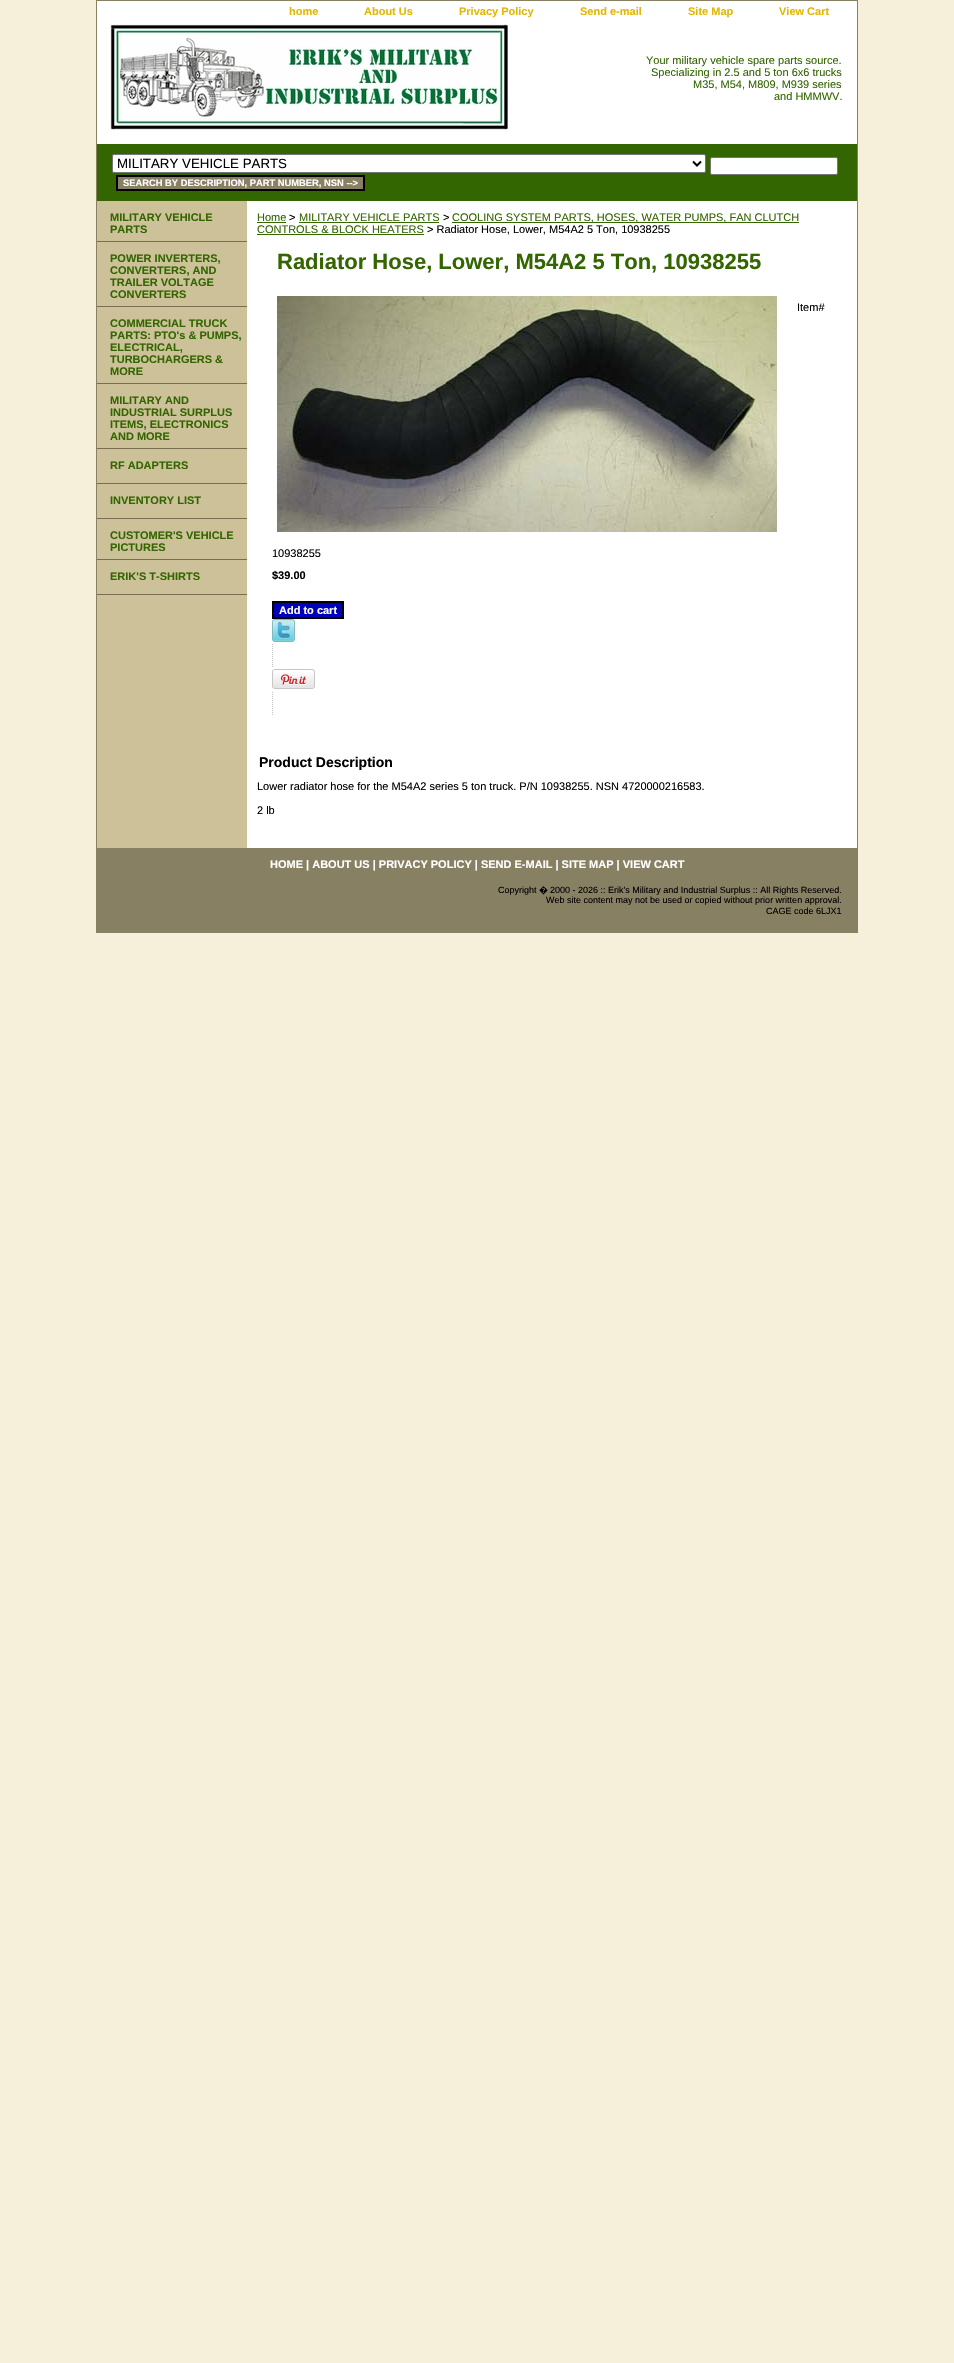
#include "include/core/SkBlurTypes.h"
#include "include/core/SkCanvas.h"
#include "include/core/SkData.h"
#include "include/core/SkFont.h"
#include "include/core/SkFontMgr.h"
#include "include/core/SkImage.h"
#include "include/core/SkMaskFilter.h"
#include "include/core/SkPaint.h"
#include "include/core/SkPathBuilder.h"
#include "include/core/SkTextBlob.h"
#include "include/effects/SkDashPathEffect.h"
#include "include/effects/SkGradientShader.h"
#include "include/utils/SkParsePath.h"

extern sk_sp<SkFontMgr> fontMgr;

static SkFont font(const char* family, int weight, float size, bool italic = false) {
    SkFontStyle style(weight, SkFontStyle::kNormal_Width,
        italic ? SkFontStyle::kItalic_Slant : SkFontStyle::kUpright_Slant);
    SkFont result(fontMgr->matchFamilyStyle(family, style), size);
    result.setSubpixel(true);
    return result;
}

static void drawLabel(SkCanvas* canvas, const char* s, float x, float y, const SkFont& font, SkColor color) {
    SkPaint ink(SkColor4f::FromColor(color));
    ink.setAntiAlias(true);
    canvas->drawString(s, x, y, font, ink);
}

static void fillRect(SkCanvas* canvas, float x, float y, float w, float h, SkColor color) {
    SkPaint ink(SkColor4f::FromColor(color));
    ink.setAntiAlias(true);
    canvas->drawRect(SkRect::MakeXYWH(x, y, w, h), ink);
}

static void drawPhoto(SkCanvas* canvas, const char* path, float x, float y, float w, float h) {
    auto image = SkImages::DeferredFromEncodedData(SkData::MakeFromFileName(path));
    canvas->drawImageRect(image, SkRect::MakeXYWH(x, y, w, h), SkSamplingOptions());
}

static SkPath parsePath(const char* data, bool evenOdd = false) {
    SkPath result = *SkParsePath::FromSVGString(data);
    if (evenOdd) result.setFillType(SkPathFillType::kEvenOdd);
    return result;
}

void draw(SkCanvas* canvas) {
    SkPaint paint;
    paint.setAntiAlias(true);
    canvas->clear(0xFFF6F0DA);
    fillRect(canvas, 97, 1, 760, 847, 0xFFFFFFFF);
    paint.setStroke(true);
    paint.setStrokeWidth(1);
    paint.setColor(0xFF888062);
    canvas->drawRect(SkRect::MakeXYWH(96.5f, 0.5f, 761, 932), paint);
    SkFont font1 = font("Liberation Sans", 700, 11);
    drawLabel(canvas, "home", 289, 15, font1, 0xFFE3B705);
    drawLabel(canvas, "About Us", 364, 15, font1, 0xFFE3B705);
    drawLabel(canvas, "Privacy Policy", 459, 15, font1, 0xFFE3B705);
    drawLabel(canvas, "Send e-mail", 580, 15, font1, 0xFFE3B705);
    drawLabel(canvas, "Site Map", 688, 15, font1, 0xFFE3B705);
    drawLabel(canvas, "View Cart", 779, 15, font1, 0xFFE3B705);
    drawPhoto(canvas, "assets/img1.png", 110, 24, 398, 106);
    SkFont font2 = font("Liberation Sans", 400, 11);
    drawLabel(canvas, "Your military vehicle spare parts source.", 646, 64, font2, 0xFF336600);
    drawLabel(canvas, "Specializing in 2.5 and 5 ton 6x6 trucks", 651, 76, font2, 0xFF336600);
    drawLabel(canvas, "M35, M54, M809, M939 series", 693, 88, font2, 0xFF336600);
    drawLabel(canvas, "and HMMWV.", 774, 100, font2, 0xFF336600);
    fillRect(canvas, 97, 144, 760, 57, 0xFF336600);
    paint.setStroke(false);
    paint.setColor(0xFFFFFFFF);
    canvas->drawRoundRect(SkRect::MakeXYWH(112.5f, 154.5f, 593, 18), 1.5f, 1.5f, paint);
    paint.setStroke(true);
    paint.setColor(0xFF767676);
    canvas->drawRoundRect(SkRect::MakeXYWH(112.5f, 154.5f, 593, 18), 1.5f, 1.5f, paint);
    paint.setStrokeWidth(2);
    paint.setColor(0xFF000000);
    canvas->drawPath(parsePath("M693 161.5L697 165.5L701 161.5"), paint);
    SkFont font3 = font("Liberation Sans", 400, 13.3f);
    drawLabel(canvas, "MILITARY VEHICLE PARTS", 117, 168, font3, 0xFF000000);
    paint.setStroke(false);
    paint.setColor(0xFFFFFFFF);
    canvas->drawRoundRect(SkRect::MakeXYWH(710.5f, 157.5f, 127, 17), 1.5f, 1.5f, paint);
    paint.setStroke(true);
    paint.setStrokeWidth(1);
    paint.setColor(0xFF767676);
    canvas->drawRoundRect(SkRect::MakeXYWH(710.5f, 157.5f, 127, 17), 1.5f, 1.5f, paint);
    paint.setStroke(false);
    paint.setColor(0xFF888062);
    canvas->drawRect(SkRect::MakeXYWH(117, 176, 247, 14), paint);
    paint.setStroke(true);
    paint.setStrokeWidth(2);
    paint.setColor(0xFF000000);
    canvas->drawRect(SkRect::MakeXYWH(117, 176, 247, 14), paint);
    SkFont font4 = font("Liberation Sans", 700, 9.35f);
    drawLabel(canvas, "SEARCH BY DESCRIPTION, PART NUMBER, NSN -->", 123, 186, font4, 0xFFFFFFFF);
    fillRect(canvas, 97, 201, 150, 647, 0xFFCCC198);
    fillRect(canvas, 97, 241, 150, 1, 0xFF776F50);
    drawLabel(canvas, "MILITARY VEHICLE", 110, 221, font1, 0xFF336600);
    drawLabel(canvas, "PARTS", 110, 233, font1, 0xFF336600);
    fillRect(canvas, 97, 306, 150, 1, 0xFF776F50);
    drawLabel(canvas, "POWER INVERTERS,", 110, 262, font1, 0xFF336600);
    drawLabel(canvas, "CONVERTERS, AND", 110, 274, font1, 0xFF336600);
    drawLabel(canvas, "TRAILER VOLTAGE", 110, 286, font1, 0xFF336600);
    drawLabel(canvas, "CONVERTERS", 110, 298, font1, 0xFF336600);
    fillRect(canvas, 97, 383, 150, 1, 0xFF776F50);
    drawLabel(canvas, "COMMERCIAL TRUCK", 110, 327, font1, 0xFF336600);
    drawLabel(canvas, "PARTS: PTO's & PUMPS,", 110, 339, font1, 0xFF336600);
    drawLabel(canvas, "ELECTRICAL,", 110, 351, font1, 0xFF336600);
    drawLabel(canvas, "TURBOCHARGERS &", 110, 363, font1, 0xFF336600);
    drawLabel(canvas, "MORE", 110, 375, font1, 0xFF336600);
    fillRect(canvas, 97, 448, 150, 1, 0xFF776F50);
    drawLabel(canvas, "MILITARY AND", 110, 404, font1, 0xFF336600);
    drawLabel(canvas, "INDUSTRIAL SURPLUS", 110, 416, font1, 0xFF336600);
    drawLabel(canvas, "ITEMS, ELECTRONICS", 110, 428, font1, 0xFF336600);
    drawLabel(canvas, "AND MORE", 110, 440, font1, 0xFF336600);
    fillRect(canvas, 97, 483, 150, 1, 0xFF776F50);
    drawLabel(canvas, "RF ADAPTERS", 110, 469, font1, 0xFF336600);
    fillRect(canvas, 97, 518, 150, 1, 0xFF776F50);
    drawLabel(canvas, "INVENTORY LIST", 110, 504, font1, 0xFF336600);
    fillRect(canvas, 97, 559, 150, 1, 0xFF776F50);
    drawLabel(canvas, "CUSTOMER'S VEHICLE", 110, 539, font1, 0xFF336600);
    drawLabel(canvas, "PICTURES", 110, 551, font1, 0xFF336600);
    fillRect(canvas, 97, 594, 150, 1, 0xFF776F50);
    drawLabel(canvas, "ERIK'S T-SHIRTS", 110, 580, font1, 0xFF336600);
    drawLabel(canvas, "Home", 257, 221, font2, 0xFF336600);
    fillRect(canvas, 257, 222, 29, 1, 0xFF336600);
    drawLabel(canvas, ">", 289, 221, font2, 0xFF000000);
    drawLabel(canvas, "MILITARY VEHICLE PARTS", 299, 221, font2, 0xFF336600);
    fillRect(canvas, 299, 222, 140, 1, 0xFF336600);
    drawLabel(canvas, ">", 443, 221, font2, 0xFF000000);
    fillRect(canvas, 452, 222, 347, 1, 0xFF336600);
    drawLabel(canvas, "COOLING SYSTEM PARTS, HOSES, WATER PUMPS, FAN CLUTCH", 452, 221, font2, 0xFF336600);
    drawLabel(canvas, "CONTROLS & BLOCK HEATERS", 257, 233, font2, 0xFF336600);
    fillRect(canvas, 257, 234, 167, 1, 0xFF336600);
    drawLabel(canvas, "> Radiator Hose, Lower, M54A2 5 Ton, 10938255", 427, 233, font2, 0xFF000000);
    SkFont font5 = font("Liberation Sans", 700, 22);
    drawLabel(canvas, "Radiator Hose, Lower, M54A2 5 Ton, 10938255", 277, 269, font5, 0xFF336600);
    drawPhoto(canvas, "assets/img2.png", 277, 296, 500, 236);
    drawLabel(canvas, "Item#", 797, 311, font2, 0xFF000000);
    drawLabel(canvas, "10938255", 272, 557, font2, 0xFF000000);
    drawLabel(canvas, "$39.00", 272, 579, font1, 0xFF000000);
    paint.setStroke(false);
    paint.setColor(0xFF0000BB);
    canvas->drawRect(SkRect::MakeXYWH(273, 602, 70, 16), paint);
    paint.setStroke(true);
    paint.setColor(0xFF000000);
    canvas->drawRect(SkRect::MakeXYWH(273, 602, 70, 16), paint);
    drawLabel(canvas, "Add to cart", 279, 614, font1, 0xFFFFFFFF);
    drawPhoto(canvas, "assets/img3.png", 272, 619, 23, 23);
    drawPhoto(canvas, "assets/img4.png", 272, 644, 1, 23);
    drawPhoto(canvas, "assets/img5.png", 272, 669, 43, 20);
    drawPhoto(canvas, "assets/img4.png", 272, 692, 1, 23);
    SkFont font6 = font("Liberation Sans", 700, 14);
    drawLabel(canvas, "Product Description", 259, 767, font6, 0xFF000000);
    drawLabel(canvas, "Lower radiator hose for the M54A2 series 5 ton truck. P/N 10938255. NSN 4720000216583.", 257, 790, font2, 0xFF000000);
    drawLabel(canvas, "2 lb", 257, 814, font2, 0xFF000000);
    fillRect(canvas, 97, 848, 760, 84, 0xFF888062);
    drawLabel(canvas, "HOME | ABOUT US | PRIVACY POLICY | SEND E-MAIL | SITE MAP | VIEW CART", 270, 868, font1, 0xFFFFFFFF);
    SkFont font7 = font("Liberation Sans", 400, 9);
    drawLabel(canvas, "Copyright", 498, 893, font7, 0xFF000000);
    SkFont font8 = font("Noto Sans", 400, 9);
    drawLabel(canvas, "�", 539, 893, font8, 0xFF000000);
    drawLabel(canvas, "2000 - 2026 :: Erik's Military and Industrial Surplus :: All Rights Reserved.", 550, 893, font7, 0xFF000000);
    drawLabel(canvas, "Web site content may not be used or copied without prior written approval.", 546, 903, font7, 0xFF000000);
    drawLabel(canvas, "CAGE code 6LJX1", 766, 914, font7, 0xFF000000);
}
